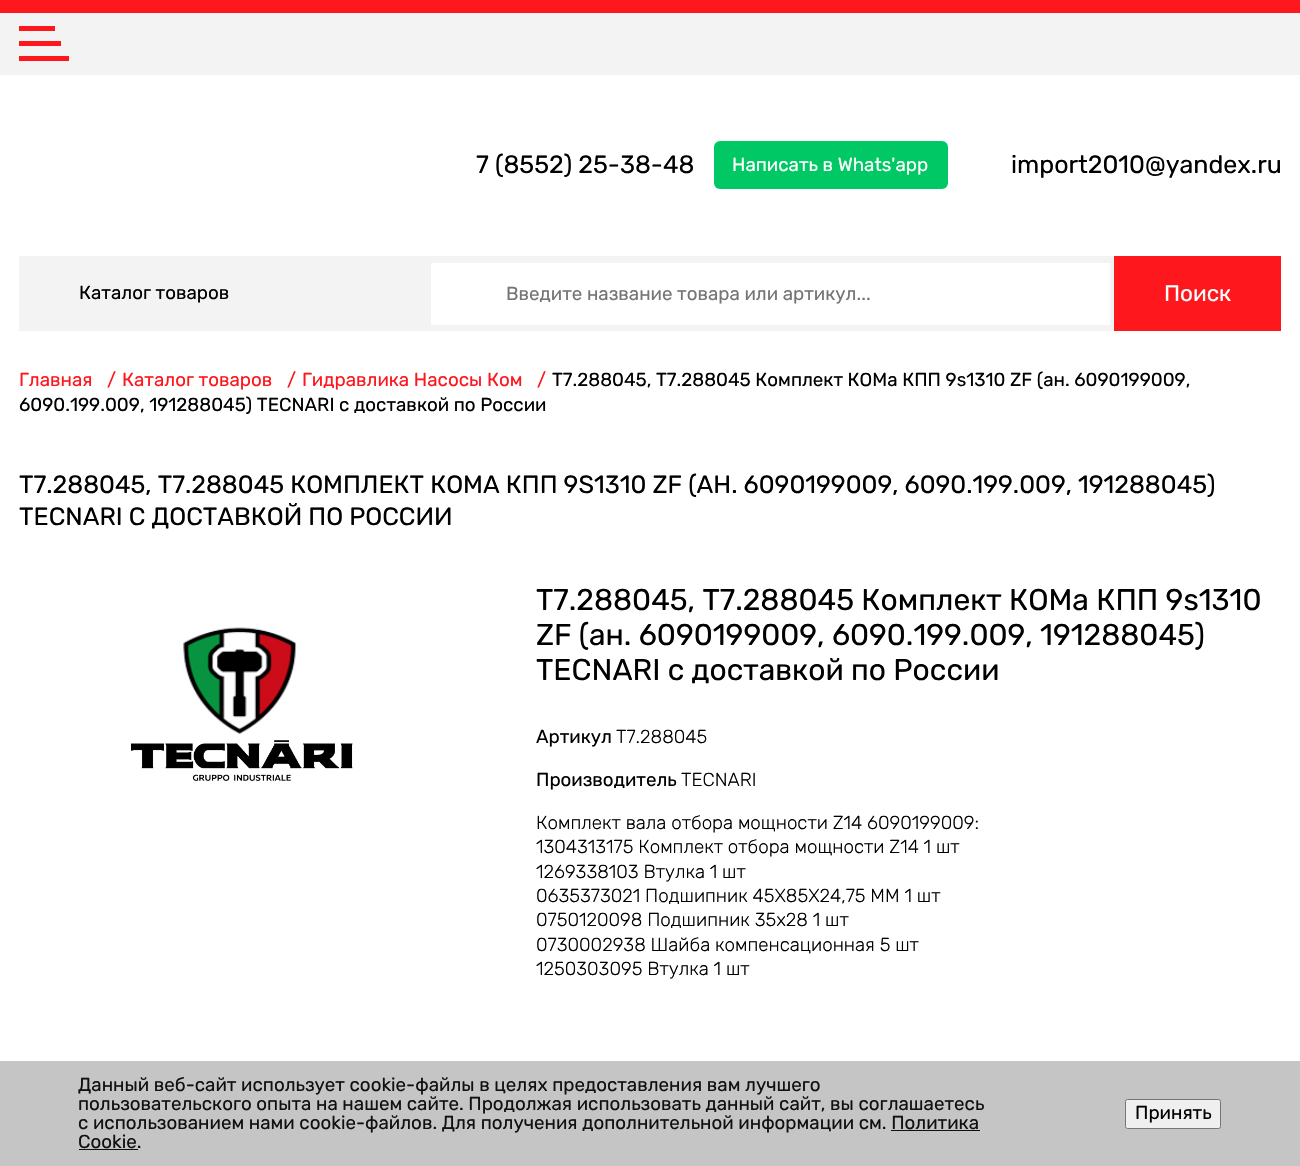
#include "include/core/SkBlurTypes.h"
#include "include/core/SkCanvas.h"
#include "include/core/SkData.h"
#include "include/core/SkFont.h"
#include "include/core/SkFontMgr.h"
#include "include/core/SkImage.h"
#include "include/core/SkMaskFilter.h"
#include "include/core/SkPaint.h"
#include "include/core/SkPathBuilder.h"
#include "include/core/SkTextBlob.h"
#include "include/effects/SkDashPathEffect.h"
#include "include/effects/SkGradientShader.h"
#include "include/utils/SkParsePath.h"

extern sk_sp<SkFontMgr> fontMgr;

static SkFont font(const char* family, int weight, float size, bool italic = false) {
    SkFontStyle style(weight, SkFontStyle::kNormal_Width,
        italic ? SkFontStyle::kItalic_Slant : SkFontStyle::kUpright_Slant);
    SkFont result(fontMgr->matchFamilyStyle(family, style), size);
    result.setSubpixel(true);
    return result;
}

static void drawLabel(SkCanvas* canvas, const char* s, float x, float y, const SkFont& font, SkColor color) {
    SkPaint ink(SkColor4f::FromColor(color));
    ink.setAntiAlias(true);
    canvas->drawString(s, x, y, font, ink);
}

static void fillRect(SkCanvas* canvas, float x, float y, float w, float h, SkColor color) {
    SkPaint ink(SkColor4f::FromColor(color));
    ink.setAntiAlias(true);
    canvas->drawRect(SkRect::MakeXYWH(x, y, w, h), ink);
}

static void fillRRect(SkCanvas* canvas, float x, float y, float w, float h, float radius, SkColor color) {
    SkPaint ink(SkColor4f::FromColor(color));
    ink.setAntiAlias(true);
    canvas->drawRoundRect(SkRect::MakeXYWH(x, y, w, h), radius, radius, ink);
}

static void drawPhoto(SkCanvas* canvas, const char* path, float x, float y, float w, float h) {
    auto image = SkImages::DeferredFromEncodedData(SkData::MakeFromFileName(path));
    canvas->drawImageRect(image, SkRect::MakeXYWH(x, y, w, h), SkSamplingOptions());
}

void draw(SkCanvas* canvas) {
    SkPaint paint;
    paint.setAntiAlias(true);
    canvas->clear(0xFFFFFFFF);
    fillRect(canvas, 0, 13, 1300, 62, 0xFFF3F3F3);
    fillRect(canvas, 0, 0, 1300, 13, 0xFFFF171E);
    fillRect(canvas, 19, 26, 36, 5, 0xFFFF171E);
    fillRect(canvas, 19, 41, 42, 5, 0xFFFF171E);
    fillRect(canvas, 19, 56, 50, 5, 0xFFFF171E);
    SkFont font1 = font("Rubik", 400, 25);
    drawLabel(canvas, "7 (8552) 25-38-48", 476, 173, font1, 0xFF000000);
    fillRRect(canvas, 714, 141, 234, 48, 6, 0xFF00C864);
    SkFont font2 = font("Rubik", 400, 18.75f);
    drawLabel(canvas, "Написать в Whats'app", 732, 171, font2, 0xFFFFFFFF);
    drawLabel(canvas, "import2010@yandex.ru", 1011, 173, font1, 0xFF000000);
    fillRect(canvas, 19, 256, 1095, 75, 0xFFF3F3F3);
    drawLabel(canvas, "Каталог товаров", 79, 299, font2, 0xFF000000);
    fillRect(canvas, 431, 263, 679, 62, 0xFFFFFFFF);
    drawLabel(canvas, "Введите название товара или артикул...", 506, 300, font2, 0xFF757575);
    fillRect(canvas, 1114, 256, 167, 75, 0xFFFF171E);
    SkFont font3 = font("Rubik", 400, 22.5f);
    drawLabel(canvas, "Поиск", 1164, 301, font3, 0xFFFFFFFF);
    drawLabel(canvas, "Главная", 19, 386, font2, 0xFFFF171E);
    drawLabel(canvas, "/", 107, 386, font2, 0xFFFF171E);
    drawLabel(canvas, "Каталог товаров", 122, 386, font2, 0xFFFF171E);
    drawLabel(canvas, "/", 287, 386, font2, 0xFFFF171E);
    drawLabel(canvas, "Гидравлика Насосы Ком", 302, 386, font2, 0xFFFF171E);
    drawLabel(canvas, "/", 537, 386, font2, 0xFFFF171E);
    drawLabel(canvas, "T7.288045, T7.288045 Комплект КОМа КПП 9s1310 ZF (ан. 6090199009,", 552, 386, font2, 0xFF000000);
    drawLabel(canvas, "6090.199.009, 191288045) TECNARI с доставкой по России", 19, 411, font2, 0xFF000000);
    drawLabel(canvas, "T7.288045, T7.288045 КОМПЛЕКТ КОМА КПП 9S1310 ZF (АН. 6090199009, 6090.199.009, 191288045)", 19, 493, font1, 0xFF000000);
    drawLabel(canvas, "TECNARI С ДОСТАВКОЙ ПО РОССИИ", 19, 525, font1, 0xFF000000);
    drawPhoto(canvas, "assets/img1.png", 130, 627, 223, 154);
    SkFont font4 = font("Rubik", 400, 30);
    drawLabel(canvas, "T7.288045, T7.288045 Комплект КОМа КПП 9s1310", 536, 610, font4, 0xFF000000);
    drawLabel(canvas, "ZF (ан. 6090199009, 6090.199.009, 191288045)", 536, 645, font4, 0xFF000000);
    drawLabel(canvas, "TECNARI с доставкой по России", 536, 680, font4, 0xFF000000);
    drawLabel(canvas, "Артикул", 536, 743, font2, 0xFF000000);
    SkFont font5 = font("Rubik", 300, 18.75f);
    drawLabel(canvas, "T7.288045", 616, 743, font5, 0xFF000000);
    drawLabel(canvas, "Производитель", 536, 786, font2, 0xFF000000);
    drawLabel(canvas, "TECNARI", 681, 786, font5, 0xFF000000);
    drawLabel(canvas, "Комплект вала отбора мощности Z14 6090199009:", 536, 829, font5, 0xFF000000);
    drawLabel(canvas, "1304313175 Комплект отбора мощности Z14 1 шт", 536, 853, font5, 0xFF000000);
    drawLabel(canvas, "1269338103 Втулка 1 шт", 536, 878, font5, 0xFF000000);
    drawLabel(canvas, "0635373021 Подшипник 45X85X24,75 MM 1 шт", 536, 902, font5, 0xFF000000);
    drawLabel(canvas, "0750120098 Подшипник 35x28 1 шт", 536, 926, font5, 0xFF000000);
    drawLabel(canvas, "0730002938 Шайба компенсационная 5 шт", 536, 951, font5, 0xFF000000);
    drawLabel(canvas, "1250303095 Втулка 1 шт", 536, 975, font5, 0xFF000000);
    fillRect(canvas, 0, 1061, 1300, 105, 0xFFC5C5C5);
    drawLabel(canvas, "Данный веб-сайт использует cookie-файлы в целях предоставления вам лучшего", 78, 1091, font2, 0xFF111111);
    drawLabel(canvas, "пользовательского опыта на нашем сайте. Продолжая использовать данный сайт, вы соглашаетесь", 78, 1110, font2, 0xFF111111);
    drawLabel(canvas, "с использованием нами cookie-файлов. Для получения дополнительной информации см. Политика", 78, 1129, font2, 0xFF111111);
    drawLabel(canvas, "Cookie.", 78, 1148, font2, 0xFF111111);
    fillRect(canvas, 891, 1130, 89, 1, 0xFF111111);
    fillRect(canvas, 79, 1149, 59, 1, 0xFF111111);
    paint.setColor(0xFFEFEFEF);
    canvas->drawRoundRect(SkRect::MakeXYWH(1125.5f, 1099.5f, 95, 29), 2, 2, paint);
    paint.setStroke(true);
    paint.setStrokeWidth(1);
    paint.setColor(0xFF767676);
    canvas->drawRoundRect(SkRect::MakeXYWH(1125.5f, 1099.5f, 95, 29), 2, 2, paint);
    drawLabel(canvas, "Принять", 1135, 1119, font2, 0xFF000000);
}
